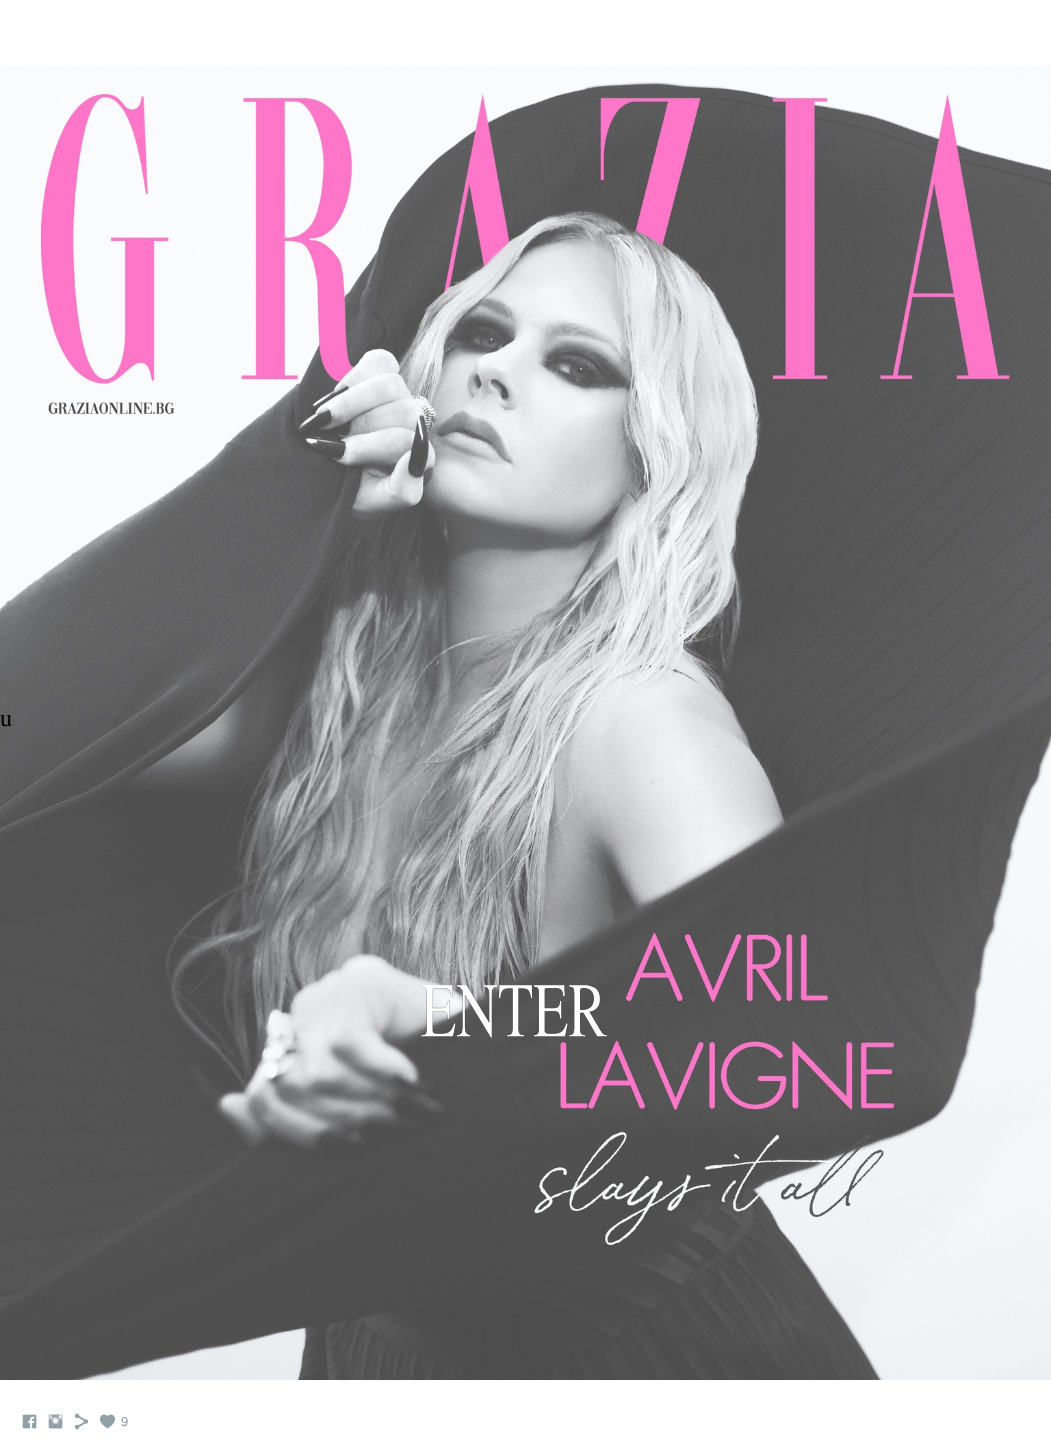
#include "include/core/SkBlurTypes.h"
#include "include/core/SkCanvas.h"
#include "include/core/SkData.h"
#include "include/core/SkFont.h"
#include "include/core/SkFontMgr.h"
#include "include/core/SkImage.h"
#include "include/core/SkMaskFilter.h"
#include "include/core/SkPaint.h"
#include "include/core/SkPathBuilder.h"
#include "include/core/SkTextBlob.h"
#include "include/effects/SkDashPathEffect.h"
#include "include/effects/SkGradientShader.h"
#include "include/utils/SkParsePath.h"

extern sk_sp<SkFontMgr> fontMgr;

static SkFont font(const char* family, int weight, float size, bool italic = false) {
    SkFontStyle style(weight, SkFontStyle::kNormal_Width,
        italic ? SkFontStyle::kItalic_Slant : SkFontStyle::kUpright_Slant);
    SkFont result(fontMgr->matchFamilyStyle(family, style), size);
    result.setSubpixel(true);
    return result;
}

static void drawLabel(SkCanvas* canvas, const char* s, float x, float y, const SkFont& font, SkColor color) {
    SkPaint ink(SkColor4f::FromColor(color));
    ink.setAntiAlias(true);
    canvas->drawString(s, x, y, font, ink);
}

static void drawPhoto(SkCanvas* canvas, const char* path, float x, float y, float w, float h) {
    auto image = SkImages::DeferredFromEncodedData(SkData::MakeFromFileName(path));
    canvas->drawImageRect(image, SkRect::MakeXYWH(x, y, w, h), SkSamplingOptions());
}

void draw(SkCanvas* canvas) {
    SkPaint paint;
    paint.setAntiAlias(true);
    canvas->clear(0xFFFFFFFF);
    drawPhoto(canvas, "assets/img1.png", 0, 66, 1051, 1314);
    SkFont font1 = font("Liberation Serif", 400, 24);
    drawLabel(canvas, "u", 0, 726, font1, 0xFF000000);
    drawPhoto(canvas, "assets/img2.png", 421, 985, 186, 53);
    drawPhoto(canvas, "assets/img3.png", 22, 1414, 15, 15);
    drawPhoto(canvas, "assets/img4.png", 48, 1414, 15, 15);
    drawPhoto(canvas, "assets/img5.png", 74, 1413, 15, 17);
    drawPhoto(canvas, "assets/img6.png", 99, 1414, 17, 15);
    SkFont font2 = font("Liberation Sans", 400, 13);
    drawLabel(canvas, "9", 121, 1426, font2, 0xFF91A1A6);
}
